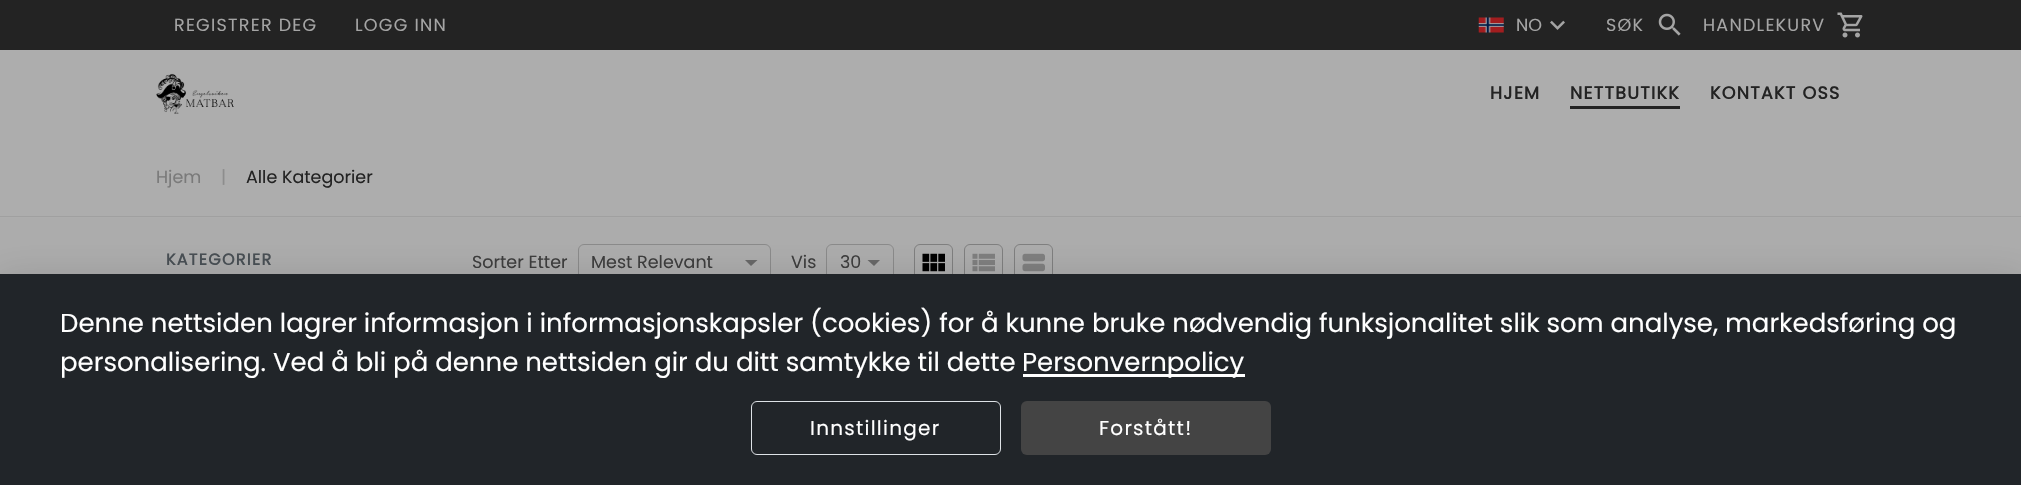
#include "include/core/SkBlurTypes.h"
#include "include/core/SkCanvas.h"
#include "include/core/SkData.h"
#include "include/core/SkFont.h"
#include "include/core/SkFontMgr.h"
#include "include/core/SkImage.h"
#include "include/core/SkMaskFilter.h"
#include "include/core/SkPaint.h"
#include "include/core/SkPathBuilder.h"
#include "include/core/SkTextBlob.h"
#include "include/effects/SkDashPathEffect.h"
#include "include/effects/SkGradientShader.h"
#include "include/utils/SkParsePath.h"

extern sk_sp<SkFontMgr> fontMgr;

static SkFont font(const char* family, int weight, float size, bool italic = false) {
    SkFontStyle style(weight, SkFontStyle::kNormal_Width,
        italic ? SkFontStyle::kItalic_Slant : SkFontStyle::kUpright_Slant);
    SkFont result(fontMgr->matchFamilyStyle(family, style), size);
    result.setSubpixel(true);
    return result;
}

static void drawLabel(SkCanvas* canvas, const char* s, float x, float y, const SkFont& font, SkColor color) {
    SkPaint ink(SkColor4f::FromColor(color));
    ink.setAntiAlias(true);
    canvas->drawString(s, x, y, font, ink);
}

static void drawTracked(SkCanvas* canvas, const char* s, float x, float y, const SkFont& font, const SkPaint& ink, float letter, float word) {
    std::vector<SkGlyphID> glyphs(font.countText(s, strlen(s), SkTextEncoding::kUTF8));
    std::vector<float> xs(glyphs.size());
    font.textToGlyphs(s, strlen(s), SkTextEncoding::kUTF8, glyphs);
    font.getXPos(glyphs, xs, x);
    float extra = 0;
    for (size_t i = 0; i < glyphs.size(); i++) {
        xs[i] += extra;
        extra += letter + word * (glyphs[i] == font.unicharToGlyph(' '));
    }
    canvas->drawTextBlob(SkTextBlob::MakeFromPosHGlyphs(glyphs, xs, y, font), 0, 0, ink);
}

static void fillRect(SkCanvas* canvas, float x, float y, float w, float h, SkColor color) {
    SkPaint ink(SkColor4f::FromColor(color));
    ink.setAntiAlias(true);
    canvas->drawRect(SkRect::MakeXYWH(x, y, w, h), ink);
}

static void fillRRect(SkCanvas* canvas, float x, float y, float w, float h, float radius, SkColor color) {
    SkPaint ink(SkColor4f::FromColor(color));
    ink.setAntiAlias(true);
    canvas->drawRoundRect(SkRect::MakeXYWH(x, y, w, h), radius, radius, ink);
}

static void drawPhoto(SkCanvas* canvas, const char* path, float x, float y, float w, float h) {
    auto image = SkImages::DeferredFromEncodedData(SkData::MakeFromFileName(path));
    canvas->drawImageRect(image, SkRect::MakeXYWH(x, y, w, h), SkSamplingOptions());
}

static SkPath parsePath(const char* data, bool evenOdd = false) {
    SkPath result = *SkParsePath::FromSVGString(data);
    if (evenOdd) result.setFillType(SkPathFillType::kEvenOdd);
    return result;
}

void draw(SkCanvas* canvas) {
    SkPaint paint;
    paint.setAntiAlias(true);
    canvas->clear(0xFFADADAD);
    fillRect(canvas, 0, 0, 2021, 50, 0xFF232323);
    SkFont font1 = font("Poppins", 400, 17.5f);
    paint.setColor(0xFFA5A5A5);
    drawTracked(canvas, "REGISTRER DEG", 174, 31, font1, paint, 1.25f, 0);
    drawTracked(canvas, "LOGG INN", 355, 31, font1, paint, 1.25f, 0);
    drawPhoto(canvas, "assets/img1.png", 1478, 17, 26, 16);
    drawLabel(canvas, "NO", 1516, 31, font1, 0xFFA5A5A5);
    drawPhoto(canvas, "assets/img2.png", 1550, 20, 15, 10);
    drawTracked(canvas, "SØK", 1606, 31, font1, paint, 1.25f, 0);
    drawPhoto(canvas, "assets/img3.png", 1658, 13, 23, 23);
    drawTracked(canvas, "HANDLEKURV", 1703, 31, font1, paint, 1.25f, 0);
    drawPhoto(canvas, "assets/img4.png", 1837, 12, 26, 26);
    drawPhoto(canvas, "assets/img5.png", 156, 73, 78, 41);
    SkFont font2 = font("Poppins", 700, 17.5f);
    paint.setColor(0xFF232323);
    drawTracked(canvas, "HJEM", 1490, 99, font2, paint, 1.25f, 0);
    drawTracked(canvas, "NETTBUTIKK", 1570, 99, font2, paint, 1.25f, 0);
    fillRect(canvas, 1570, 106, 110, 3, 0xFF232323);
    drawTracked(canvas, "KONTAKT OSS", 1710, 99, font2, paint, 1.25f, 0);
    fillRect(canvas, 0, 216, 2021, 1, 0xFFA0A0A0);
    drawLabel(canvas, "Hjem", 156, 183, font1, 0xFF7A7A7A);
    drawLabel(canvas, "|", 221, 183, font1, 0xFF8D8D8D);
    drawLabel(canvas, "Alle Kategorier", 246, 183, font1, 0xFF232323);
    SkFont font3 = font("Poppins", 700, 16);
    paint.setColor(0xFF495055);
    drawTracked(canvas, "KATEGORIER", 166, 265, font3, paint, 1.25f, 0);
    drawLabel(canvas, "Sorter Etter", 472, 268, font1, 0xFF3E3E3E);
    paint.setStroke(true);
    paint.setStrokeWidth(1);
    paint.setColor(0xFF8B8B8B);
    canvas->drawRoundRect(SkRect::MakeXYWH(578.5f, 244.5f, 192, 36), 5.5f, 5.5f, paint);
    drawLabel(canvas, "Mest Relevant", 591, 268, font1, 0xFF3E3E3E);
    paint.setStroke(false);
    paint.setColor(0xFF686868);
    canvas->drawPath(parsePath("M745 260H757.5L751 266Z"), paint);
    drawLabel(canvas, "Vis", 791, 268, font1, 0xFF3E3E3E);
    paint.setStroke(true);
    paint.setColor(0xFF8B8B8B);
    canvas->drawRoundRect(SkRect::MakeXYWH(826.5f, 244.5f, 67, 36), 5.5f, 5.5f, paint);
    drawLabel(canvas, "30", 840, 268, font1, 0xFF3E3E3E);
    paint.setStroke(false);
    paint.setColor(0xFF686868);
    canvas->drawPath(parsePath("M867.5 260H880L874 266Z"), paint);
    paint.setStroke(true);
    paint.setColor(0xFF808080);
    canvas->drawRoundRect(SkRect::MakeXYWH(914.5f, 244.5f, 38, 38), 5.5f, 5.5f, paint);
    drawPhoto(canvas, "assets/img6.png", 922, 253, 23, 19);
    canvas->drawRoundRect(SkRect::MakeXYWH(964.5f, 244.5f, 38, 38), 5.5f, 5.5f, paint);
    drawPhoto(canvas, "assets/img7.png", 972, 253, 23, 19);
    canvas->drawRoundRect(SkRect::MakeXYWH(1014.5f, 244.5f, 38, 38), 5.5f, 5.5f, paint);
    drawPhoto(canvas, "assets/img8.png", 1022, 253, 23, 19);
    paint.setStroke(false);
    paint.setColor(0x1F000000);
    paint.setMaskFilter(SkMaskFilter::MakeBlur(kNormal_SkBlurStyle, 19));
    canvas->drawRect(SkRect::MakeXYWH(-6, 275, 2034, 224), paint);
    paint.setMaskFilter(nullptr);
    fillRect(canvas, 0, 274, 2021, 211, 0xFF212529);
    SkFont font4 = font("Poppins", 400, 26);
    drawLabel(canvas, "Denne nettsiden lagrer informasjon i informasjonskapsler (cookies) for å kunne bruke nødvendig funksjonalitet slik som analyse, markedsføring og", 60, 332, font4, 0xFFFFFFFF);
    drawLabel(canvas, "personalisering. Ved å bli på denne nettsiden gir du ditt samtykke til dette", 60, 371, font4, 0xFFFFFFFF);
    fillRect(canvas, 1023, 374, 222, 3, 0xFFFFFFFF);
    drawLabel(canvas, "Personvernpolicy", 1022, 371, font4, 0xFFFFFFFF);
    paint.setStroke(true);
    paint.setColor(0xFFDEE2E6);
    canvas->drawRoundRect(SkRect::MakeXYWH(751.5f, 401.5f, 249, 53), 5.5f, 5.5f, paint);
    SkFont font5 = font("Poppins", 400, 20);
    paint.setStroke(false);
    paint.setColor(0xFFFFFFFF);
    drawTracked(canvas, "Innstillinger", 810, 435, font5, paint, 1.25f, 0);
    fillRRect(canvas, 1021, 401, 250, 54, 6, 0xFF444444);
    drawTracked(canvas, "Forstått!", 1099, 435, font5, paint, 1.25f, 0);
}
